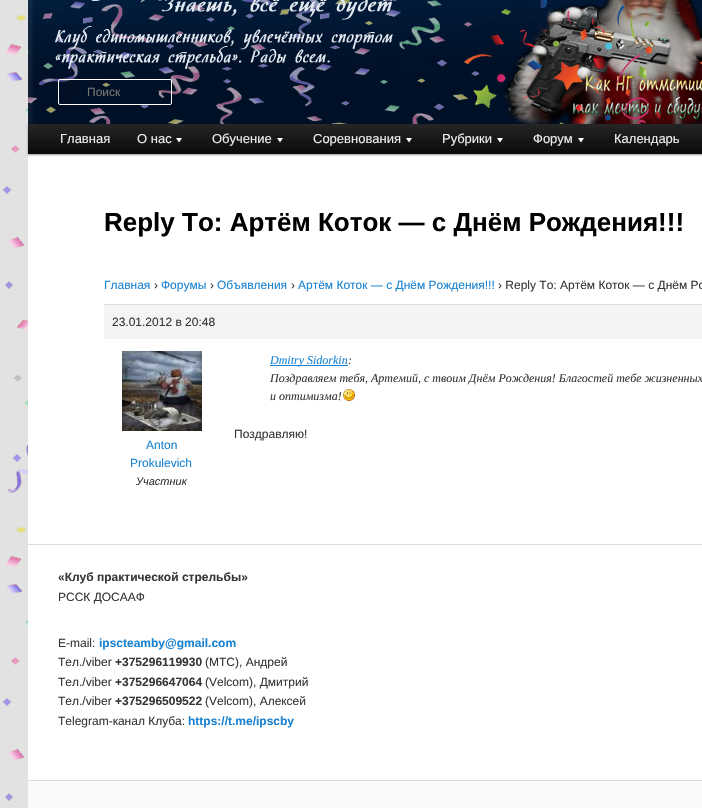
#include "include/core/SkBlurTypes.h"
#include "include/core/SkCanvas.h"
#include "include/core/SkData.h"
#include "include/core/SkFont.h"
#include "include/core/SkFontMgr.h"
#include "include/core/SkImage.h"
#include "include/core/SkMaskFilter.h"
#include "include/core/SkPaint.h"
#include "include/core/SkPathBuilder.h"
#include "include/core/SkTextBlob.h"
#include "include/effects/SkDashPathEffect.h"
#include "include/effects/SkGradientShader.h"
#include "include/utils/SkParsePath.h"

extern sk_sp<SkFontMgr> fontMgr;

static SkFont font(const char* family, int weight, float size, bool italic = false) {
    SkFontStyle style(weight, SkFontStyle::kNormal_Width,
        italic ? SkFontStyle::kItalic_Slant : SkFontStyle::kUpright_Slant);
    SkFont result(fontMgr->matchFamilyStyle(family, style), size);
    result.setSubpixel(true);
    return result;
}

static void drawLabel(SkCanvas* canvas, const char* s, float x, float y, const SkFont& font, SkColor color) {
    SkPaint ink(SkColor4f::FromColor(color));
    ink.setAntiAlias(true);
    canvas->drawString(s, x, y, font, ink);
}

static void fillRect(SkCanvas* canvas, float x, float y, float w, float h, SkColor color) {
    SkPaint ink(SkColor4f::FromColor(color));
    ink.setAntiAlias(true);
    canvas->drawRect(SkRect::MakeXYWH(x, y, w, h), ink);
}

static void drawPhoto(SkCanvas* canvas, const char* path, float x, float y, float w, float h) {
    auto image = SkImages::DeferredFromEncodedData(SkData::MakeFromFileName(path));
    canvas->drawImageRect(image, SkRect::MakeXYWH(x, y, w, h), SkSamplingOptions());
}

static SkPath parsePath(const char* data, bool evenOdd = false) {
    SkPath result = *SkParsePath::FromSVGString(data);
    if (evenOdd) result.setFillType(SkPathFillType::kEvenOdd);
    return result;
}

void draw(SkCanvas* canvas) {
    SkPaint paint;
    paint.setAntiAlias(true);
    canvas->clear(0xFFE2E2E2);
    drawPhoto(canvas, "assets/img1.png", 3, 15, 25, 786);
    fillRect(canvas, 28, 0, 674, 780, 0xFFFFFFFF);
    paint.setColor(0x66000000);
    paint.setMaskFilter(SkMaskFilter::MakeBlur(kNormal_SkBlurStyle, 1));
    canvas->drawRect(SkRect::MakeXYWH(28, 125, 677, 30), paint);
    paint.setMaskFilter(nullptr);
    drawPhoto(canvas, "assets/img2.png", 28, 0, 674, 124);
    drawPhoto(canvas, "assets/img3.png", 65, 85, 13, 16);
    paint.setColor(0x1A000000);
    canvas->drawPath(parsePath("M60 81H171V82L170 80H78C75 80 59 75 59 82C59 81 59 81 60 81Z"), paint);
    paint.setStroke(true);
    paint.setStrokeWidth(1);
    paint.setColor(0xFFFFFFFF);
    canvas->drawRoundRect(SkRect::MakeXYWH(58.5f, 79.5f, 113, 25), 1.5f, 1.5f, paint);
    SkFont font1 = font("Liberation Sans", 400, 12);
    drawLabel(canvas, "Поиск", 87, 96, font1, 0xFF757575);
    paint.setStroke(false);
    {
        const SkColor colors[] = {0xFF252525, 0xFF0A0A0A};
        const float stops[] = {0, 1};
        const SkPoint ends[] = {{528, 124}, {528, 154}};
        paint.setShader(SkGradientShader::MakeLinear(ends, colors, stops, 2, SkTileMode::kClamp));
        paint.setAlpha(255);
    }
    canvas->drawRect(SkRect::MakeXYWH(28, 124, 674, 30), paint);
    SkFont font2 = font("Liberation Sans", 400, 13);
    drawLabel(canvas, "Главная", 60, 143, font2, 0xFFEEEEEE);
    drawLabel(canvas, "О нас", 137, 143, font2, 0xFFEEEEEE);
    paint.setShader(nullptr);
    paint.setColor(0xFFFFFFFF);
    canvas->drawPath(parsePath("M182 138L179 142.5L176 138Z"), paint);
    drawLabel(canvas, "Обучение", 212, 143, font2, 0xFFEEEEEE);
    canvas->drawPath(parsePath("M283 138L280 142.5L277 138Z"), paint);
    drawLabel(canvas, "Соревнования", 313, 143, font2, 0xFFEEEEEE);
    canvas->drawPath(parsePath("M412 138L409 142.5L406 138Z"), paint);
    drawLabel(canvas, "Рубрики", 442, 143, font2, 0xFFEEEEEE);
    canvas->drawPath(parsePath("M503 138L500 142.5L497 138Z"), paint);
    drawLabel(canvas, "Форум", 533, 143, font2, 0xFFEEEEEE);
    canvas->drawPath(parsePath("M584 138L581 142.5L578 138Z"), paint);
    drawLabel(canvas, "Календарь", 614, 143, font2, 0xFFEEEEEE);
    SkFont font3 = font("Liberation Sans", 700, 26);
    drawLabel(canvas, "Reply To: Артём Коток — с Днём Рождения!!!", 104, 231, font3, 0xFF000000);
    drawLabel(canvas, "Главная", 104, 289, font1, 0xFF1982D1);
    drawLabel(canvas, "›", 154, 289, font1, 0xFF373737);
    drawLabel(canvas, "Форумы", 161, 289, font1, 0xFF1982D1);
    drawLabel(canvas, "›", 210, 289, font1, 0xFF373737);
    drawLabel(canvas, "Объявления", 217, 289, font1, 0xFF1982D1);
    drawLabel(canvas, "›", 291, 289, font1, 0xFF373737);
    drawLabel(canvas, "Артём Коток — с Днём Рождения!!!", 298, 289, font1, 0xFF1982D1);
    drawLabel(canvas, "› Reply To: Артём Коток — с Днём Ро", 498, 289, font1, 0xFF373737);
    fillRect(canvas, 104, 305, 598, 34, 0xFFF4F4F4);
    fillRect(canvas, 104, 304, 598, 1, 0xFFDDDDDD);
    drawLabel(canvas, "23.01.2012 в 20:48", 112, 326, font1, 0xFF373737);
    fillRect(canvas, 270, 365, 78, 1, 0xFF1982D1);
    SkFont font4 = font("Liberation Serif", 400, 12, true);
    drawLabel(canvas, "Dmitry Sidorkin", 270, 364, font4, 0xFF1982D1);
    drawLabel(canvas, ":", 348, 364, font4, 0xFF373737);
    drawLabel(canvas, "Поздравляем тебя, Артемий, с твоим Днём Рождения! Благостей тебе жизненных", 270, 382, font4, 0xFF373737);
    drawLabel(canvas, "и оптимизма!", 270, 400, font4, 0xFF373737);
    drawPhoto(canvas, "assets/img4.png", 343, 389, 12, 12);
    drawLabel(canvas, "Поздравляю!", 234, 438, font1, 0xFF373737);
    drawPhoto(canvas, "assets/img5.png", 122, 351, 80, 80);
    drawLabel(canvas, "Anton", 146, 449, font1, 0xFF1982D1);
    drawLabel(canvas, "Prokulevich", 130, 467, font1, 0xFF1982D1);
    SkFont font5 = font("Liberation Sans", 400, 11, true);
    drawLabel(canvas, "Участник", 136, 485, font5, 0xFF373737);
    fillRect(canvas, 28, 544, 674, 1, 0xFFDDDDDD);
    SkFont font6 = font("Liberation Sans", 700, 12);
    drawLabel(canvas, "«Клуб практической стрельбы»", 58, 581, font6, 0xFF373737);
    drawLabel(canvas, "РССК ДОСААФ", 58, 601, font1, 0xFF373737);
    drawLabel(canvas, "E-mail:", 58, 647, font1, 0xFF373737);
    drawLabel(canvas, "ipscteamby@gmail.com", 99, 647, font6, 0xFF1982D1);
    drawLabel(canvas, "Тел./viber", 58, 666, font1, 0xFF373737);
    drawLabel(canvas, "+375296119930", 115, 666, font6, 0xFF373737);
    drawLabel(canvas, "(МТС), Андрей", 205, 666, font1, 0xFF373737);
    drawLabel(canvas, "Тел./viber", 58, 686, font1, 0xFF373737);
    drawLabel(canvas, "+375296647064", 115, 686, font6, 0xFF373737);
    drawLabel(canvas, "(Velcom), Дмитрий", 205, 686, font1, 0xFF373737);
    drawLabel(canvas, "Тел./viber", 58, 705, font1, 0xFF373737);
    drawLabel(canvas, "+375296509522", 115, 705, font6, 0xFF373737);
    drawLabel(canvas, "(Velcom), Алексей", 205, 705, font1, 0xFF373737);
    drawLabel(canvas, "Telegram-канал Клуба:", 58, 725, font1, 0xFF373737);
    drawLabel(canvas, "https://t.me/ipscby", 188, 725, font6, 0xFF1982D1);
    fillRect(canvas, 28, 781, 674, 27, 0xFFF9F9F9);
    fillRect(canvas, 28, 780, 674, 1, 0xFFDDDDDD);
}
